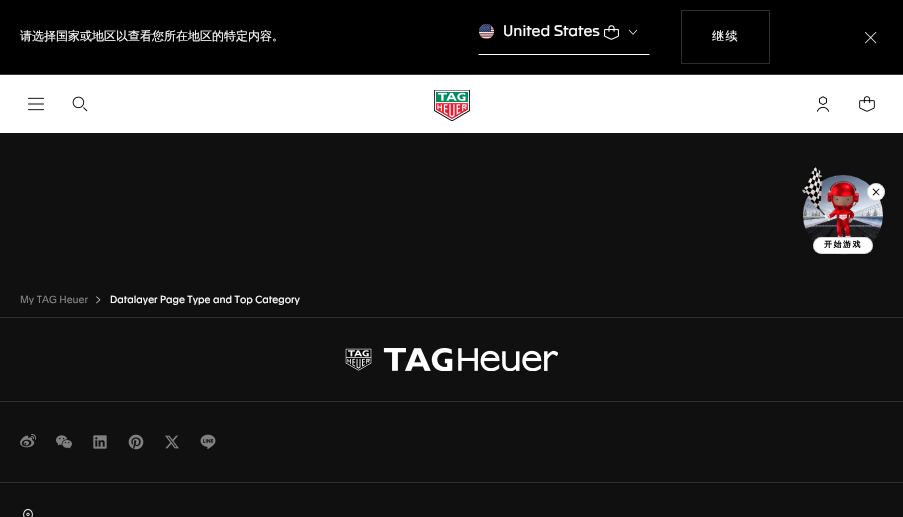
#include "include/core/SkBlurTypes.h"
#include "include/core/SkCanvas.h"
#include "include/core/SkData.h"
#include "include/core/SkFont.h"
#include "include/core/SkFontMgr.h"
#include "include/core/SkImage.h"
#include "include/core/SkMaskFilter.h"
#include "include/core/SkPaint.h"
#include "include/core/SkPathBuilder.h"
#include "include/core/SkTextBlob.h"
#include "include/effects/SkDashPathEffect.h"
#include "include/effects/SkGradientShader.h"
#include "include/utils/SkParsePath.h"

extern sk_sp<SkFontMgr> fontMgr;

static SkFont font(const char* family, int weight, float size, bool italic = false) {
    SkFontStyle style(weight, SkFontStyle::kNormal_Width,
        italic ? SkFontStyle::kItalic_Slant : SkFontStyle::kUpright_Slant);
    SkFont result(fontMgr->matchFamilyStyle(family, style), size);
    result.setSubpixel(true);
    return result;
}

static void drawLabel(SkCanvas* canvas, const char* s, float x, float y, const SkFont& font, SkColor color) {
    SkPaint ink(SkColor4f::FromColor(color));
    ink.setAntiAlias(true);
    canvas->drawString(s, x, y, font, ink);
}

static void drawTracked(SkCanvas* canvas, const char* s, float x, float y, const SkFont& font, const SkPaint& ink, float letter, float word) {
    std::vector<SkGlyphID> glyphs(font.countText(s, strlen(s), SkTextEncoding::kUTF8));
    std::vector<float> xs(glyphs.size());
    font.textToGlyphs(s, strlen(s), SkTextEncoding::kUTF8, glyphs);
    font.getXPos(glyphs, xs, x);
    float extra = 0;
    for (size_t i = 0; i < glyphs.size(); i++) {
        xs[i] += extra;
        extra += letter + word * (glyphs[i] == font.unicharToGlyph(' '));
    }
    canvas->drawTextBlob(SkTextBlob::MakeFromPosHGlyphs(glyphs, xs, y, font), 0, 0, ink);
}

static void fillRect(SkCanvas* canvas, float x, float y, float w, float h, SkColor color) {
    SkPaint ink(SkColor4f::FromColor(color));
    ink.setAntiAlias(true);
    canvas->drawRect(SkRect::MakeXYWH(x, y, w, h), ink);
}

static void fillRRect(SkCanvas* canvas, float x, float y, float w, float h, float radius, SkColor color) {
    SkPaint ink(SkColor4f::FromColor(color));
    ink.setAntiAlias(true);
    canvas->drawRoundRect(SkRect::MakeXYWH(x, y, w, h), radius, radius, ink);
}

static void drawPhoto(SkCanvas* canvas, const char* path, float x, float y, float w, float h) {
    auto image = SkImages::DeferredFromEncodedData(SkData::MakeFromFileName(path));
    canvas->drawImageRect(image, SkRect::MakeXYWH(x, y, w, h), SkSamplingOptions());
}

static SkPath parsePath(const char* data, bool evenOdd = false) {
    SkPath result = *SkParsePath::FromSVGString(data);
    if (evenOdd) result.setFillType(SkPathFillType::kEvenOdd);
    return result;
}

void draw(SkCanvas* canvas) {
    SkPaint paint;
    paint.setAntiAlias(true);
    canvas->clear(0xFF101010);
    fillRect(canvas, 0, 75, 903, 58, 0xFFFFFFFF);
    fillRect(canvas, 0, 0, 903, 74, 0xFF000000);
    fillRect(canvas, 0, 74, 903, 1, 0xFF363636);
    SkFont font1 = font("WenQuanYi Zen Hei", 500, 12);
    drawLabel(canvas, "请选择国家或地区以查看您所在地区的特定内容。", 20, 40, font1, 0xFFFFFFFF);
    paint.setColor(0xFFFFFFFF);
    canvas->drawPath(parsePath("M650 55H478L479 54H649Z"), paint);
    drawPhoto(canvas, "assets/img1.png", 479, 24, 15, 15);
    SkFont font2 = font("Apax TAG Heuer", 400, 15);
    drawLabel(canvas, "United States", 503, 36, font2, 0xFFFFFFFF);
    drawPhoto(canvas, "assets/img2.png", 604, 25, 15, 15);
    drawPhoto(canvas, "assets/img3.png", 628, 29, 10, 6);
    paint.setStroke(true);
    paint.setStrokeWidth(1);
    paint.setColor(0xFF2E2E2E);
    canvas->drawRect(SkRect::MakeXYWH(681.5f, 10.5f, 88, 53), paint);
    paint.setStroke(false);
    paint.setColor(0xFFFFFFFF);
    drawTracked(canvas, "继续", 712, 40, font1, paint, 1.5f, 0);
    drawPhoto(canvas, "assets/img4.png", 865, 32, 12, 12);
    drawPhoto(canvas, "assets/img5.png", 434, 90, 36, 31);
    drawPhoto(canvas, "assets/img6.png", 28, 97, 16, 14);
    drawPhoto(canvas, "assets/img7.png", 72, 96, 16, 16);
    drawPhoto(canvas, "assets/img8.png", 816, 96, 14, 16);
    drawPhoto(canvas, "assets/img9.png", 859, 96, 16, 16);
    drawPhoto(canvas, "assets/img11.png", 803, 175, 80, 80);
    canvas->drawCircle(876, 192, 9, paint);
    paint.setStroke(true);
    paint.setColor(0x5C969696);
    canvas->drawCircle(876, 192, 8.5f, paint);
    paint.setStroke(false);
    paint.setColor(0xFF000000);
    canvas->drawPath(parsePath("M879 188.5L879.5 189L873.5 195.5L872.5 195Z"), paint);
    canvas->drawPath(parsePath("M872.5 189L873.5 188.5L879.5 195L879 195.5Z"), paint);
    drawPhoto(canvas, "assets/img10.png", 802, 167, 58, 70);
    fillRRect(canvas, 813, 237, 60, 17, 8.5f, 0xFFFFFFFF);
    paint.setStroke(true);
    paint.setColor(0x5C969696);
    canvas->drawRoundRect(SkRect::MakeXYWH(813.5f, 237.5f, 59, 16), 8, 8, paint);
    SkFont font3 = font("WenQuanYi Zen Hei", 700, 8);
    paint.setStroke(false);
    paint.setColor(0xFF000000);
    drawTracked(canvas, "开始游戏", 824, 247, font3, paint, 1.5f, 0);
    fillRect(canvas, 0, 401, 903, 1, 0xFF2E2E2E);
    drawPhoto(canvas, "assets/img12.png", 345, 348, 213, 23);
    fillRect(canvas, 0, 482, 903, 1, 0xFF2E2E2E);
    drawPhoto(canvas, "assets/img13.png", 20, 434, 16, 14);
    drawPhoto(canvas, "assets/img14.png", 56, 435, 16, 14);
    drawPhoto(canvas, "assets/img15.png", 93, 435, 14, 14);
    drawPhoto(canvas, "assets/img16.png", 128, 434, 16, 16);
    drawPhoto(canvas, "assets/img17.png", 165, 435, 14, 14);
    drawPhoto(canvas, "assets/img18.png", 200, 434, 16, 15);
    drawPhoto(canvas, "assets/img19.png", 23, 509, 10, 8);
    fillRect(canvas, 0, 317, 903, 1, 0xFF2E2E2E);
    SkFont font4 = font("Apax TAG Heuer", 400, 10);
    drawLabel(canvas, "My TAG Heuer", 20, 303, font4, 0xFF808080);
    drawPhoto(canvas, "assets/img20.png", 96, 296, 5, 8);
    drawLabel(canvas, "Datalayer Page Type and Top Category", 110, 303, font4, 0xFFFFFFFF);
}
